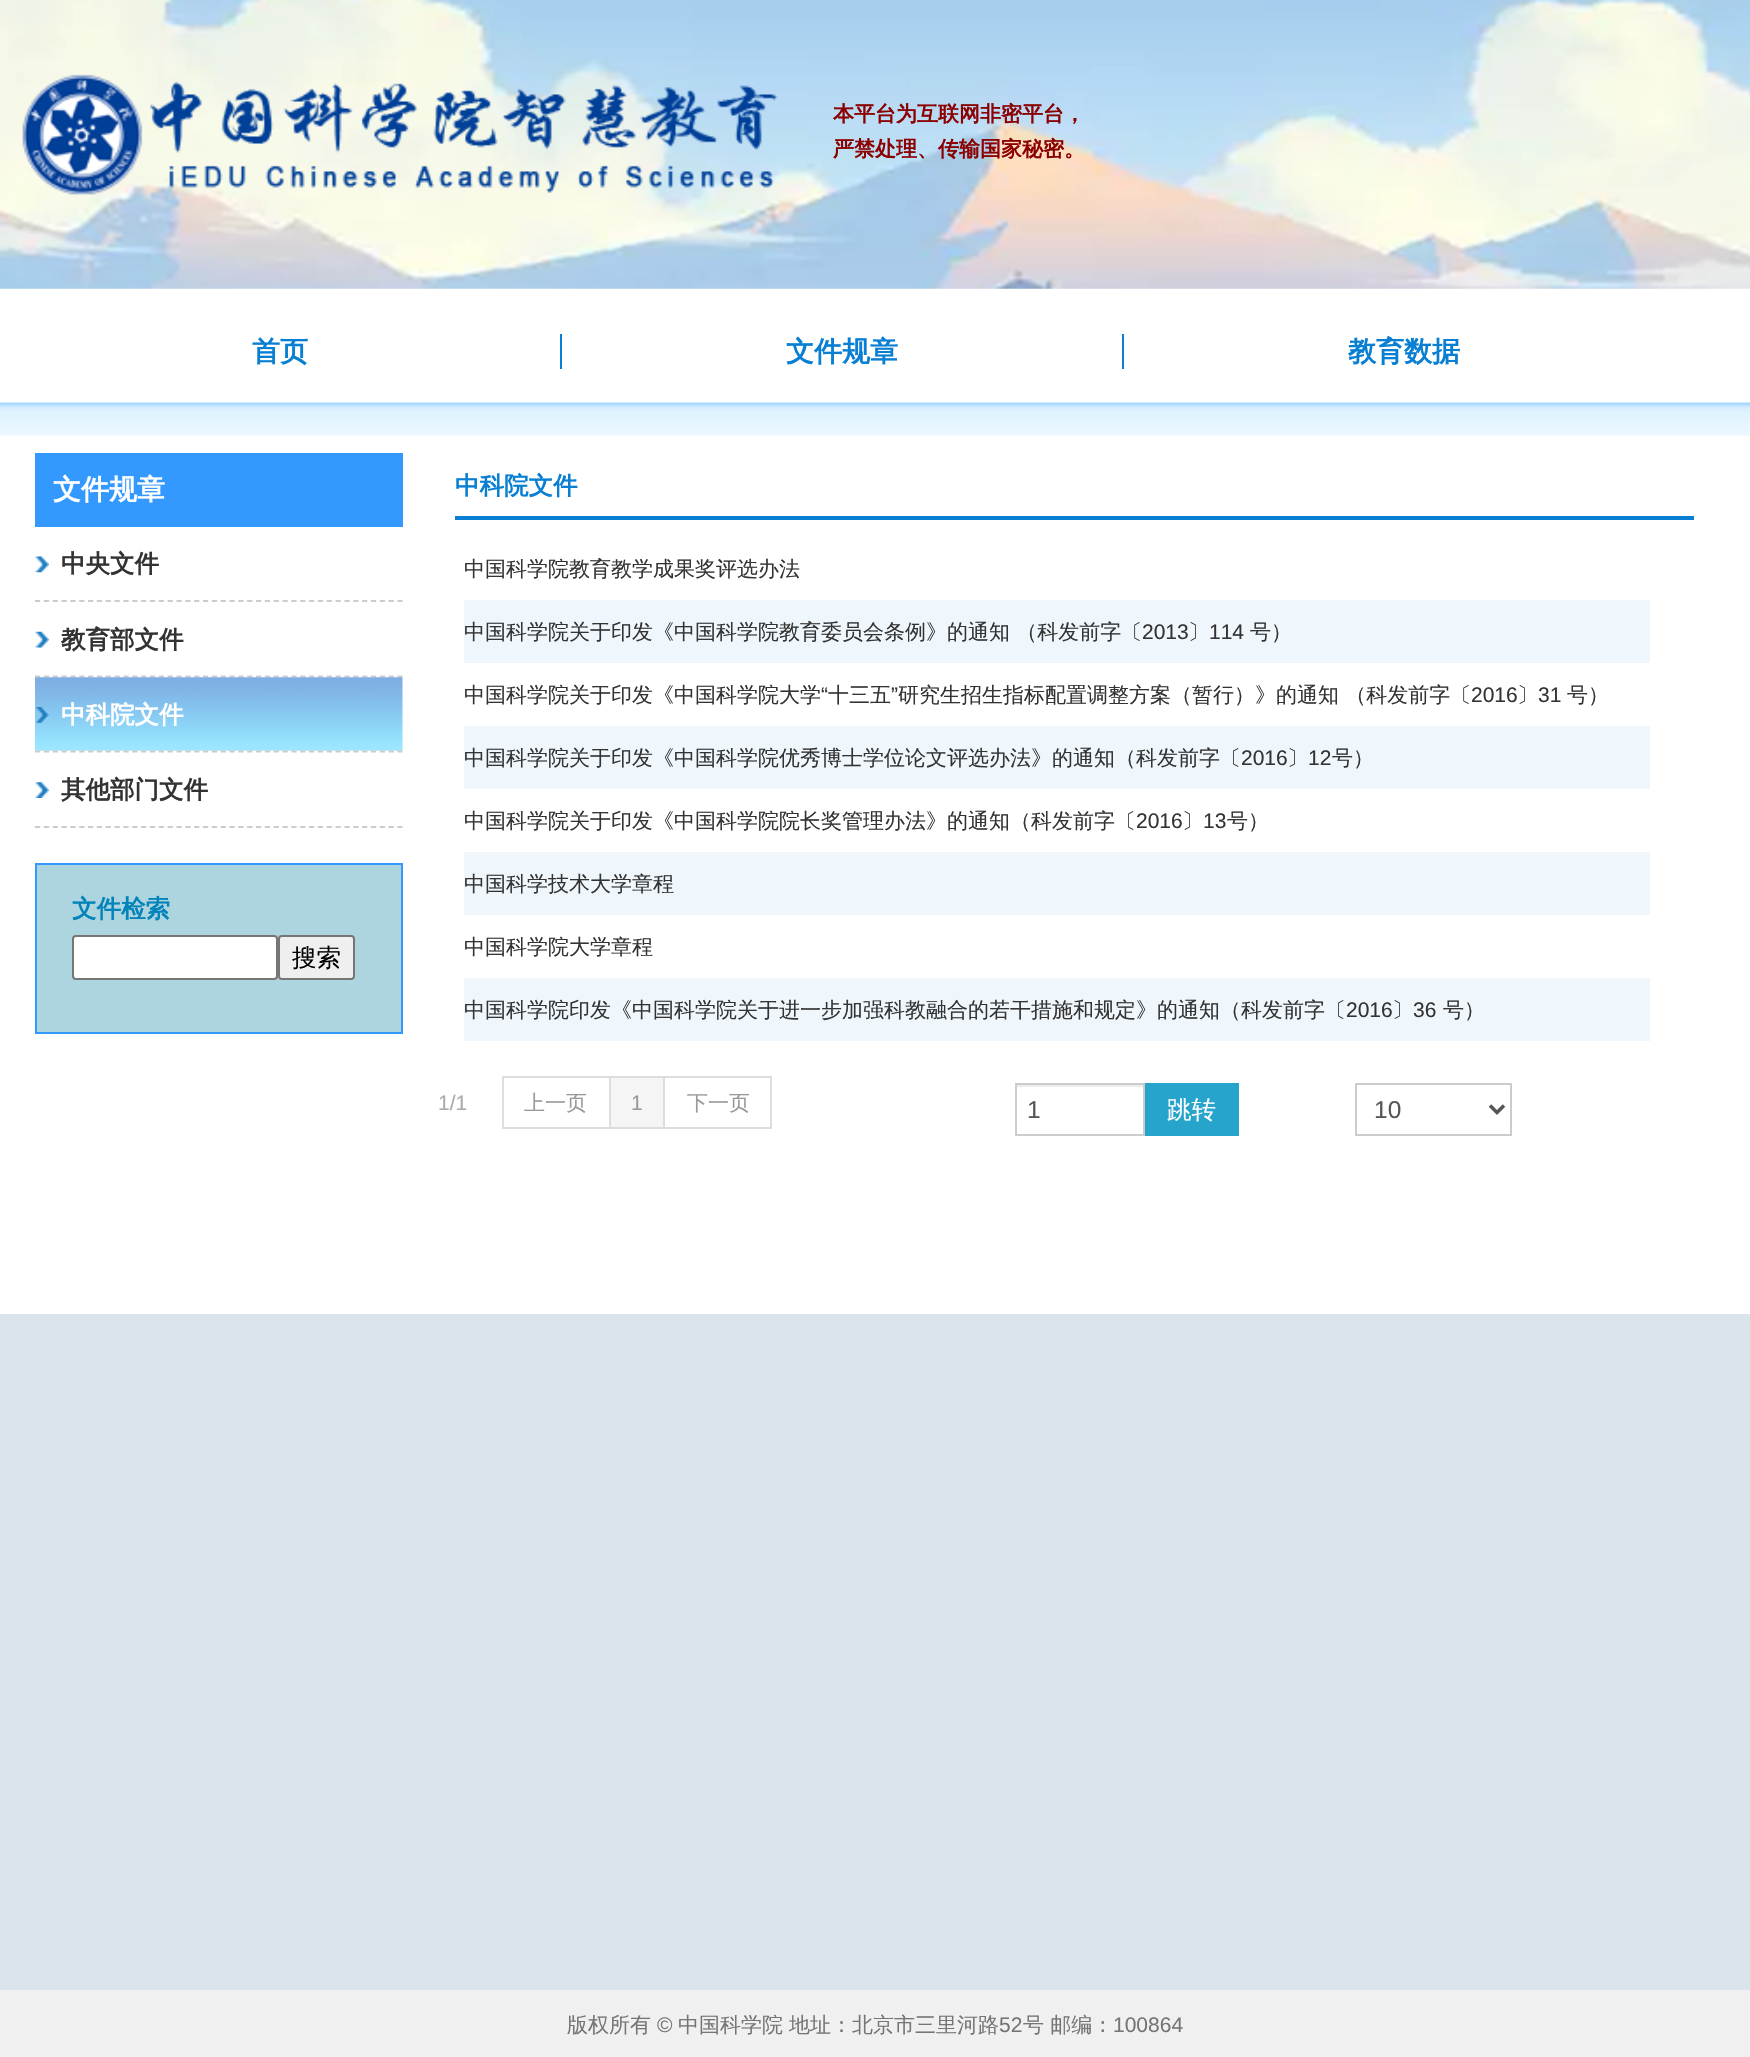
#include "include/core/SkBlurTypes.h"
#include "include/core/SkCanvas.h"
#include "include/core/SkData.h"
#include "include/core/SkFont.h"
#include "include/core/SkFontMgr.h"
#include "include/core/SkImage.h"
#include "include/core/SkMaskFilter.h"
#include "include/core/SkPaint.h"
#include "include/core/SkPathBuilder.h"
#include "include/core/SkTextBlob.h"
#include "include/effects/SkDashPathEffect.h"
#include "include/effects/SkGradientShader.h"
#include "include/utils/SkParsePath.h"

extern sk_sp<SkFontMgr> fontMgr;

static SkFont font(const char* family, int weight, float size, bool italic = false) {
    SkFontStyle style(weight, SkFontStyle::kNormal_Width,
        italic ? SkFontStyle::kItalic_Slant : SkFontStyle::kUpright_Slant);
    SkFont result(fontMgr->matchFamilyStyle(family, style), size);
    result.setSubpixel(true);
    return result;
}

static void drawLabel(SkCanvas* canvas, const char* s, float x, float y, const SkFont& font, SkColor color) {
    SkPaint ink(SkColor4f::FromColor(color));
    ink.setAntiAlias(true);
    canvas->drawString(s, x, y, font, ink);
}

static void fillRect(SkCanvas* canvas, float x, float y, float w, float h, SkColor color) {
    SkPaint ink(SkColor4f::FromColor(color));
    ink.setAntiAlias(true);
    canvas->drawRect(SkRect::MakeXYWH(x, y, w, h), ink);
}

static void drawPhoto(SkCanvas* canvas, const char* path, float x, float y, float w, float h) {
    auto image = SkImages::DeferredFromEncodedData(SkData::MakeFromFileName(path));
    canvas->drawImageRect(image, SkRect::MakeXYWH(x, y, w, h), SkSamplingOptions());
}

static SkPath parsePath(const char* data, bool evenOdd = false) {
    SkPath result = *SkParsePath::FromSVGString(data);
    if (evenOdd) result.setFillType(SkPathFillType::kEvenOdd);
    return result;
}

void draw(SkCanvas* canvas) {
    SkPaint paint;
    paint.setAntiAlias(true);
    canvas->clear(0xFFDAE5EB);
    fillRect(canvas, 0, 288, 1750, 1026, 0xFFFFFFFF);
    drawPhoto(canvas, "assets/img1.png", 0, 0, 1750, 289);
    drawPhoto(canvas, "assets/img2.png", 22, 74, 756, 121);
    SkFont font1 = font("WenQuanYi Zen Hei", 700, 21);
    drawLabel(canvas, "本平台为互联网非密平台，", 833, 121, font1, 0xFF8B0000);
    drawLabel(canvas, "严禁处理、传输国家秘密。", 833, 156, font1, 0xFF8B0000);
    fillRect(canvas, 560, 334, 2, 35, 0xFF087FD3);
    SkFont font2 = font("WenQuanYi Zen Hei", 700, 28);
    drawLabel(canvas, "首页", 252, 361, font2, 0xFF087FD3);
    fillRect(canvas, 1122, 334, 2, 35, 0xFF087FD3);
    drawLabel(canvas, "文件规章", 786, 361, font2, 0xFF087FD3);
    drawLabel(canvas, "教育数据", 1348, 361, font2, 0xFF087FD3);
    drawPhoto(canvas, "assets/img3.png", 0, 402, 1750, 34);
    fillRect(canvas, 35, 453, 368, 74, 0xFF3399FF);
    drawLabel(canvas, "文件规章", 53, 499, font2, 0xFFFFFFFF);
    paint.setStroke(true);
    paint.setStrokeWidth(1.8f);
    paint.setColor(0xFFCCCCCC);
    paint.setPathEffect(SkDashPathEffect::Make({{5.25f, 3.59f}}, 0));
    canvas->drawPath(parsePath("M35 601H402.5"), paint);
    paint.setPathEffect(nullptr);
    drawPhoto(canvas, "assets/img4.png", 35, 556, 14, 17);
    SkFont font3 = font("WenQuanYi Zen Hei", 700, 24.5f);
    drawLabel(canvas, "中央文件", 61, 572, font3, 0xFF333333);
    paint.setPathEffect(SkDashPathEffect::Make({{5.25f, 3.59f}}, 0));
    canvas->drawPath(parsePath("M35 676.5H402.5"), paint);
    paint.setPathEffect(nullptr);
    drawPhoto(canvas, "assets/img5.png", 35, 631, 14, 17);
    drawLabel(canvas, "教育部文件", 61, 648, font3, 0xFF333333);
    drawPhoto(canvas, "assets/img6.png", 35, 677, 368, 74);
    paint.setPathEffect(SkDashPathEffect::Make({{5.25f, 3.59f}}, 0));
    canvas->drawPath(parsePath("M35 751.5H402.5"), paint);
    paint.setPathEffect(nullptr);
    drawPhoto(canvas, "assets/img7.png", 35, 707, 14, 16);
    drawLabel(canvas, "中科院文件", 61, 723, font3, 0xFFFFFFFF);
    paint.setPathEffect(SkDashPathEffect::Make({{5.25f, 3.59f}}, 0));
    canvas->drawPath(parsePath("M35 827H402.5"), paint);
    paint.setPathEffect(nullptr);
    drawPhoto(canvas, "assets/img8.png", 35, 782, 14, 16);
    drawLabel(canvas, "其他部门文件", 61, 798, font3, 0xFF333333);
    paint.setStroke(false);
    paint.setColor(0xFFADD5E0);
    canvas->drawRect(SkRect::MakeXYWH(36, 864, 366, 169), paint);
    paint.setStroke(true);
    paint.setStrokeWidth(2);
    paint.setColor(0xFF3399FF);
    canvas->drawRect(SkRect::MakeXYWH(36, 864, 366, 169), paint);
    drawLabel(canvas, "文件检索", 72, 917, font3, 0xFF0383BA);
    paint.setStroke(false);
    paint.setColor(0xFFFFFFFF);
    canvas->drawRoundRect(SkRect::MakeXYWH(73, 936, 204, 43), 3, 3, paint);
    paint.setStroke(true);
    paint.setColor(0xFF767676);
    canvas->drawRoundRect(SkRect::MakeXYWH(73, 936, 204, 43), 3, 3, paint);
    paint.setStroke(false);
    paint.setColor(0xFFEFEFEF);
    canvas->drawRoundRect(SkRect::MakeXYWH(279, 936, 75, 43), 3, 3, paint);
    paint.setStroke(true);
    paint.setColor(0xFF767676);
    canvas->drawRoundRect(SkRect::MakeXYWH(279, 936, 75, 43), 3, 3, paint);
    SkFont font4 = font("WenQuanYi Zen Hei", 500, 24.5f);
    drawLabel(canvas, "搜索", 292, 966, font4, 0xFF000000);
    fillRect(canvas, 455, 516, 1239, 4, 0xFF087FD3);
    drawLabel(canvas, "中科院文件", 455, 494, font3, 0xFF087FD3);
    SkFont font5 = font("WenQuanYi Zen Hei", 500, 21);
    drawLabel(canvas, "中国科学院教育教学成果奖评选办法", 464, 576, font5, 0xFF333333);
    fillRect(canvas, 464, 600, 1186, 63, 0xFFEFF7FC);
    drawLabel(canvas, "中国科学院关于印发《中国科学院教育委员会条例》的通知 （科发前字〔", 464, 639, font5, 0xFF333333);
    SkFont font6 = font("Liberation Sans", 400, 21);
    drawLabel(canvas, "2013", 1142, 639, font6, 0xFF333333);
    drawLabel(canvas, "〕", 1188, 639, font5, 0xFF333333);
    drawLabel(canvas, "114", 1209, 639, font6, 0xFF333333);
    drawLabel(canvas, "号）", 1250, 639, font5, 0xFF333333);
    drawLabel(canvas, "中国科学院关于印发《中国科学院大学", 464, 702, font5, 0xFF333333);
    drawLabel(canvas, "“", 821, 702, font6, 0xFF333333);
    drawLabel(canvas, "十三五", 828, 702, font5, 0xFF333333);
    drawLabel(canvas, "”", 891, 702, font6, 0xFF333333);
    drawLabel(canvas, "研究生招生指标配置调整方案（暂行）》的通知 （科发前字〔", 898, 702, font5, 0xFF333333);
    drawLabel(canvas, "2016", 1471, 702, font6, 0xFF333333);
    drawLabel(canvas, "〕", 1517, 702, font5, 0xFF333333);
    drawLabel(canvas, "31", 1538, 702, font6, 0xFF333333);
    drawLabel(canvas, "号）", 1567, 702, font5, 0xFF333333);
    fillRect(canvas, 464, 726, 1186, 63, 0xFFEFF7FC);
    drawLabel(canvas, "中国科学院关于印发《中国科学院优秀博士学位论文评选办法》的通知（科发前字〔", 464, 765, font5, 0xFF333333);
    drawLabel(canvas, "2016", 1241, 765, font6, 0xFF333333);
    drawLabel(canvas, "〕", 1287, 765, font5, 0xFF333333);
    drawLabel(canvas, "12", 1308, 765, font6, 0xFF333333);
    drawLabel(canvas, "号）", 1332, 765, font5, 0xFF333333);
    drawLabel(canvas, "中国科学院关于印发《中国科学院院长奖管理办法》的通知（科发前字〔", 464, 828, font5, 0xFF333333);
    drawLabel(canvas, "2016", 1136, 828, font6, 0xFF333333);
    drawLabel(canvas, "〕", 1182, 828, font5, 0xFF333333);
    drawLabel(canvas, "13", 1203, 828, font6, 0xFF333333);
    drawLabel(canvas, "号）", 1227, 828, font5, 0xFF333333);
    fillRect(canvas, 464, 852, 1186, 63, 0xFFEFF7FC);
    drawLabel(canvas, "中国科学技术大学章程", 464, 891, font5, 0xFF333333);
    drawLabel(canvas, "中国科学院大学章程", 464, 954, font5, 0xFF333333);
    fillRect(canvas, 464, 978, 1186, 63, 0xFFEFF7FC);
    drawLabel(canvas, "中国科学院印发《中国科学院关于进一步加强科教融合的若干措施和规定》的通知（科发前字〔", 464, 1017, font5, 0xFF333333);
    drawLabel(canvas, "2016", 1346, 1017, font6, 0xFF333333);
    drawLabel(canvas, "〕", 1392, 1017, font5, 0xFF333333);
    drawLabel(canvas, "36", 1413, 1017, font6, 0xFF333333);
    drawLabel(canvas, "号）", 1443, 1017, font5, 0xFF333333);
    drawLabel(canvas, "1/1", 438, 1110, font6, 0xFFAAAAAA);
    paint.setColor(0xFFDDDDDD);
    canvas->drawRect(SkRect::MakeXYWH(503, 1077, 107, 51), paint);
    drawLabel(canvas, "上一页", 524, 1110, font5, 0xFF999999);
    fillRect(canvas, 611, 1078, 52, 49, 0xFFF5F5F5);
    fillRect(canvas, 611, 1076, 161, 2, 0xFFDDDDDD);
    fillRect(canvas, 663, 1076, 2, 53, 0xFFDDDDDD);
    fillRect(canvas, 611, 1127, 54, 2, 0xFFDDDDDD);
    drawLabel(canvas, "1", 631, 1110, font6, 0xFF999999);
    fillRect(canvas, 770, 1076, 2, 53, 0xFFDDDDDD);
    fillRect(canvas, 665, 1127, 107, 2, 0xFFDDDDDD);
    drawLabel(canvas, "下一页", 687, 1110, font5, 0xFF999999);
    fillRect(canvas, 1017, 1085, 126, 2, 0xFFECECEC);
    paint.setColor(0xFFCCCCCC);
    canvas->drawRect(SkRect::MakeXYWH(1016, 1084, 128, 51), paint);
    SkFont font7 = font("Liberation Sans", 400, 24.5f);
    drawLabel(canvas, "1", 1027, 1118, font7, 0xFF555555);
    fillRect(canvas, 1145, 1083, 94, 53, 0xFF26A4CC);
    drawLabel(canvas, "跳转", 1167, 1118, font4, 0xFFFFFFFF);
    canvas->drawRect(SkRect::MakeXYWH(1356, 1084, 155, 51), paint);
    paint.setStrokeWidth(3.5f);
    paint.setColor(0xFF555555);
    canvas->drawPath(parsePath("M1490 1105.5L1497 1112.5L1504 1105.5"), paint);
    drawLabel(canvas, "10", 1374, 1118, font7, 0xFF555555);
    fillRect(canvas, 0, 1990, 1750, 67, 0xFFF0F0F0);
    drawLabel(canvas, "版权所有", 567, 2032, font5, 0xFF757575);
    drawLabel(canvas, "©", 657, 2032, font6, 0xFF757575);
    drawLabel(canvas, "中国科学院", 678, 2032, font5, 0xFF757575);
    drawLabel(canvas, "地址：北京市三里河路", 789, 2032, font5, 0xFF757575);
    drawLabel(canvas, "52", 999, 2032, font6, 0xFF757575);
    drawLabel(canvas, "号 邮编：", 1023, 2032, font5, 0xFF757575);
    drawLabel(canvas, "100864", 1113, 2032, font6, 0xFF757575);
}
